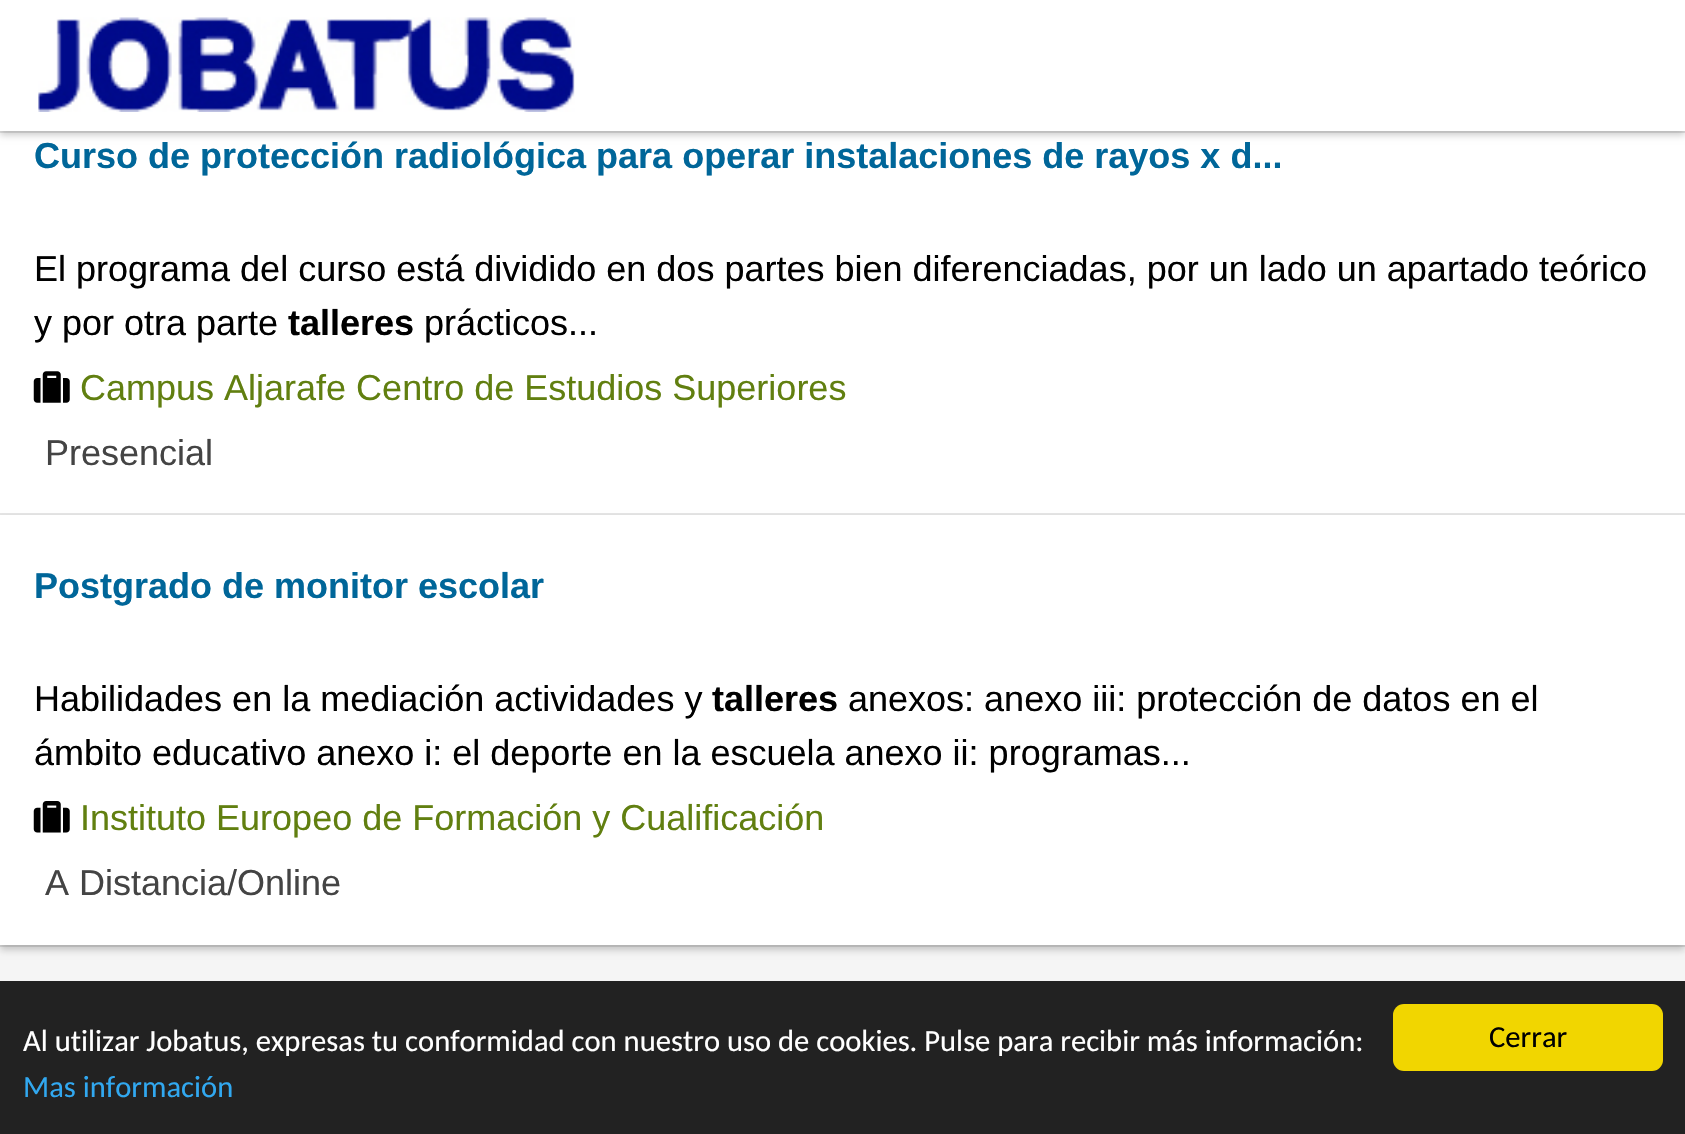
#include "include/core/SkBlurTypes.h"
#include "include/core/SkCanvas.h"
#include "include/core/SkData.h"
#include "include/core/SkFont.h"
#include "include/core/SkFontMgr.h"
#include "include/core/SkImage.h"
#include "include/core/SkMaskFilter.h"
#include "include/core/SkPaint.h"
#include "include/core/SkPathBuilder.h"
#include "include/core/SkTextBlob.h"
#include "include/effects/SkDashPathEffect.h"
#include "include/effects/SkGradientShader.h"
#include "include/utils/SkParsePath.h"

extern sk_sp<SkFontMgr> fontMgr;

static SkFont font(const char* family, int weight, float size, bool italic = false) {
    SkFontStyle style(weight, SkFontStyle::kNormal_Width,
        italic ? SkFontStyle::kItalic_Slant : SkFontStyle::kUpright_Slant);
    SkFont result(fontMgr->matchFamilyStyle(family, style), size);
    result.setSubpixel(true);
    return result;
}

static void drawLabel(SkCanvas* canvas, const char* s, float x, float y, const SkFont& font, SkColor color) {
    SkPaint ink(SkColor4f::FromColor(color));
    ink.setAntiAlias(true);
    canvas->drawString(s, x, y, font, ink);
}

static void fillRect(SkCanvas* canvas, float x, float y, float w, float h, SkColor color) {
    SkPaint ink(SkColor4f::FromColor(color));
    ink.setAntiAlias(true);
    canvas->drawRect(SkRect::MakeXYWH(x, y, w, h), ink);
}

static void fillRRect(SkCanvas* canvas, float x, float y, float w, float h, float radius, SkColor color) {
    SkPaint ink(SkColor4f::FromColor(color));
    ink.setAntiAlias(true);
    canvas->drawRoundRect(SkRect::MakeXYWH(x, y, w, h), radius, radius, ink);
}

static void drawPhoto(SkCanvas* canvas, const char* path, float x, float y, float w, float h) {
    auto image = SkImages::DeferredFromEncodedData(SkData::MakeFromFileName(path));
    canvas->drawImageRect(image, SkRect::MakeXYWH(x, y, w, h), SkSamplingOptions());
}

void draw(SkCanvas* canvas) {
    SkPaint paint;
    paint.setAntiAlias(true);
    canvas->clear(0xFFF5F5F5);
    fillRect(canvas, 0, 131, 1685, 384, 0xFFFFFFFF);
    paint.setColor(0x33000000);
    paint.setMaskFilter(SkMaskFilter::MakeBlur(kNormal_SkBlurStyle, 3.5f));
    canvas->drawRect(SkRect::MakeXYWH(0, 5, 1685, 130), paint);
    paint.setMaskFilter(nullptr);
    paint.setStroke(true);
    paint.setStrokeWidth(2);
    paint.setColor(0x1A000000);
    canvas->drawRect(SkRect::MakeXYWH(-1, -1, 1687, 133), paint);
    fillRect(canvas, 0, 0, 1685, 131, 0xFFFFFFFF);
    drawPhoto(canvas, "assets/img1.png", 38, 17, 537, 95);
    SkFont font1 = font("Liberation Sans", 700, 36);
    drawLabel(canvas, "Curso de protección radiológica para operar instalaciones de rayos x d...", 34, 168, font1, 0xFF006699);
    SkFont font2 = font("Liberation Sans", 400, 36);
    drawLabel(canvas, "El programa del curso está dividido en dos partes bien diferenciadas, por un lado un apartado teórico", 34, 281, font2, 0xFF000000);
    drawLabel(canvas, "y por otra parte", 34, 335, font2, 0xFF000000);
    drawLabel(canvas, "talleres", 288, 335, font1, 0xFF000000);
    drawLabel(canvas, "prácticos...", 424, 335, font2, 0xFF000000);
    drawPhoto(canvas, "assets/img2.png", 33, 371, 37, 32);
    drawLabel(canvas, "Campus Aljarafe Centro de Estudios Superiores", 80, 400, font2, 0xFF617F10);
    drawLabel(canvas, "Presencial", 45, 465, font2, 0xFF444444);
    paint.setStroke(false);
    paint.setColor(0x33000000);
    paint.setMaskFilter(SkMaskFilter::MakeBlur(kNormal_SkBlurStyle, 3.5f));
    canvas->drawRect(SkRect::MakeXYWH(0, 520, 1685, 430), paint);
    paint.setMaskFilter(nullptr);
    paint.setStroke(true);
    paint.setColor(0x1A000000);
    canvas->drawRect(SkRect::MakeXYWH(-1, 514, 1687, 432), paint);
    fillRect(canvas, 0, 515, 1685, 430, 0xFFFFFFFF);
    drawLabel(canvas, "Postgrado de monitor escolar", 34, 598, font1, 0xFF006699);
    drawLabel(canvas, "Habilidades en la mediación actividades y", 34, 711, font2, 0xFF000000);
    drawLabel(canvas, "talleres", 712, 711, font1, 0xFF000000);
    drawLabel(canvas, "anexos: anexo iii: protección de datos en el", 848, 711, font2, 0xFF000000);
    drawLabel(canvas, "ámbito educativo anexo i: el deporte en la escuela anexo ii: programas...", 34, 765, font2, 0xFF000000);
    drawPhoto(canvas, "assets/img3.png", 33, 801, 37, 32);
    drawLabel(canvas, "Instituto Europeo de Formación y Cualificación", 80, 830, font2, 0xFF617F10);
    drawLabel(canvas, "A Distancia/Online", 45, 895, font2, 0xFF444444);
    fillRect(canvas, 0, 981, 1685, 153, 0xFF222222);
    SkFont font3 = font("Carlito", 400, 30.6f);
    drawLabel(canvas, "Al utilizar Jobatus, expresas tu conformidad con nuestro uso de cookies. Pulse para recibir más información:", 23, 1051, font3, 0xFFFFFFFF);
    drawLabel(canvas, "Mas información", 23, 1097, font3, 0xFF31A8F0);
    fillRRect(canvas, 1393, 1004, 270, 67, 11, 0xFFF1D600);
    drawLabel(canvas, "Cerrar", 1489, 1047, font3, 0xFF000000);
}
